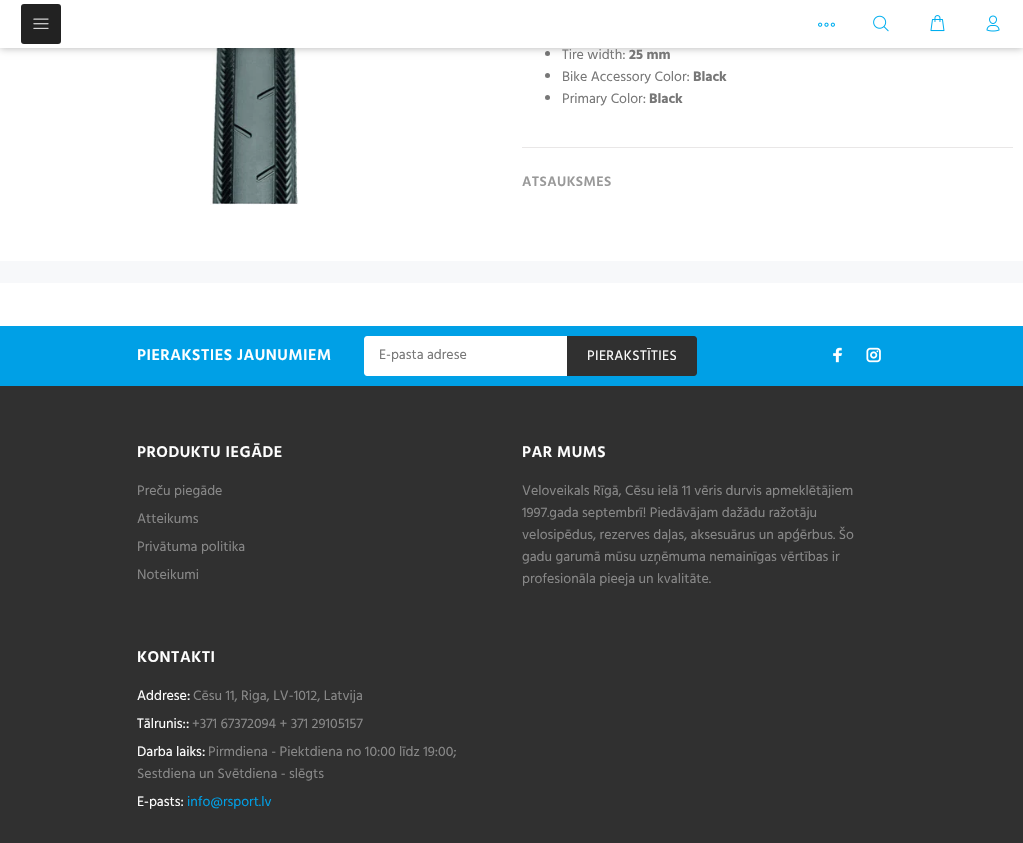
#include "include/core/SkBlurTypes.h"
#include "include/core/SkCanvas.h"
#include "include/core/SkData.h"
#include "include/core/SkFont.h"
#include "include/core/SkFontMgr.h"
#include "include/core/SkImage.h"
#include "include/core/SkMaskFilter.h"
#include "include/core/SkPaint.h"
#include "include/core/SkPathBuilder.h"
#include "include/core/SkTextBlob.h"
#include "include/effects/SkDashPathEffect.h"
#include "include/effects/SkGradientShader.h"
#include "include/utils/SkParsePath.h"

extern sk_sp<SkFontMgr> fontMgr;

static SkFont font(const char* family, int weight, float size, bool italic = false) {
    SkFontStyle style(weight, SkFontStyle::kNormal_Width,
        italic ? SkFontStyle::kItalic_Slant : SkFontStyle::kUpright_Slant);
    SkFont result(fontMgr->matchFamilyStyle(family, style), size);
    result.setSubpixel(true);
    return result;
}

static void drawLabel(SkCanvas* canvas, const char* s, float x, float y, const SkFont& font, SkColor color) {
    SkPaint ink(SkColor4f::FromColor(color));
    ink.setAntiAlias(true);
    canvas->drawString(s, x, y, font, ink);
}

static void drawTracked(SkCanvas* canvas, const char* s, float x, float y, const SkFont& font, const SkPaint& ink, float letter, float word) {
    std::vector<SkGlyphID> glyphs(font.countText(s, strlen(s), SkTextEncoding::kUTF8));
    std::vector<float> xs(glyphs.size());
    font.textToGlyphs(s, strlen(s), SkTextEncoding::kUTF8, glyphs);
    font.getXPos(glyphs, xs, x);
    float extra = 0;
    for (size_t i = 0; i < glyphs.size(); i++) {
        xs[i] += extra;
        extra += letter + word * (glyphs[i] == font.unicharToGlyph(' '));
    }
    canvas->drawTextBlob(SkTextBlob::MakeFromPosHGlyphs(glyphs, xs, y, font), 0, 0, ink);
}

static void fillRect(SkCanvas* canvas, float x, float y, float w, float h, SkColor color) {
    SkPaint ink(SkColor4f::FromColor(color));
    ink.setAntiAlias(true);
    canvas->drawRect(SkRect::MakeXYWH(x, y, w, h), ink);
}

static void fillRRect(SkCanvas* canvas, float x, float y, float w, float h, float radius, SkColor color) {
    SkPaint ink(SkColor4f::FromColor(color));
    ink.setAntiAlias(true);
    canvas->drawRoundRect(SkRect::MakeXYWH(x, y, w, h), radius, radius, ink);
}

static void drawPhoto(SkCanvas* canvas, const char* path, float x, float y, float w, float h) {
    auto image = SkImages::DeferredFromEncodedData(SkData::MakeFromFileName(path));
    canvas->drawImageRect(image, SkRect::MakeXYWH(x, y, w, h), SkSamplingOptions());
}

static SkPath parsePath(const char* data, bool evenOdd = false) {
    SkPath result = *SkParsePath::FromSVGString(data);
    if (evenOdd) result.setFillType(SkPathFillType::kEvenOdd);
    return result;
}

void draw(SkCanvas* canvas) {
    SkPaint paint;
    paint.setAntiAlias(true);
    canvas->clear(0xFFFFFFFF);
    drawPhoto(canvas, "assets/img6.png", 210, 48, 89, 157);
    paint.setColor(0xFF777777);
    canvas->drawCircle(547.5f, 53.5f, 2.5f, paint);
    paint.setColor(0x4D000000);
    paint.setMaskFilter(SkMaskFilter::MakeBlur(kNormal_SkBlurStyle, 4));
    canvas->drawRect(SkRect::MakeXYWH(0, 0, 1023, 48), paint);
    paint.setMaskFilter(nullptr);
    fillRect(canvas, 0, 0, 1023, 48, 0xFFFFFFFF);
    fillRRect(canvas, 21, 4, 40, 40, 3, 0xFF222222);
    drawPhoto(canvas, "assets/img1.png", 33, 18, 16, 11);
    drawPhoto(canvas, "assets/img2.png", 818, 22, 17, 5);
    drawPhoto(canvas, "assets/img3.png", 873, 15, 16, 17);
    drawPhoto(canvas, "assets/img4.png", 930, 15, 15, 17);
    drawPhoto(canvas, "assets/img5.png", 986, 15, 14, 17);
    fillRect(canvas, 522, 147, 491, 1, 0xFFE9E7E7);
    SkFont font1 = font("Hind", 400, 14);
    drawLabel(canvas, "Tire width:", 562, 59, font1, 0xFF777777);
    SkFont font2 = font("Hind", 700, 14);
    drawLabel(canvas, "25 mm", 629, 59, font2, 0xFF777777);
    paint.setColor(0xFF777777);
    canvas->drawCircle(547.5f, 75.5f, 2.5f, paint);
    drawLabel(canvas, "Bike Accessory Color:", 562, 81, font1, 0xFF777777);
    drawLabel(canvas, "Black", 693, 81, font2, 0xFF777777);
    canvas->drawCircle(547.5f, 97.5f, 2.5f, paint);
    drawLabel(canvas, "Primary Color:", 562, 103, font1, 0xFF777777);
    drawLabel(canvas, "Black", 649, 103, font2, 0xFF777777);
    SkFont font3 = font("Hind", 600, 14);
    paint.setColor(0xFF999999);
    drawTracked(canvas, "ATSAUKSMES", 522, 186, font3, paint, 0.4f, 0);
    fillRect(canvas, 0, 261, 1023, 22, 0xFFF7F8FA);
    fillRect(canvas, 0, 386, 1023, 457, 0xFF303030);
    fillRect(canvas, 0, 326, 1023, 60, 0xFF00A0E6);
    SkFont font4 = font("Hind", 600, 16);
    paint.setColor(0xFFFFFFFF);
    drawTracked(canvas, "PIERAKSTIES JAUNUMIEM", 137, 360, font4, paint, 0.5f, 0);
    canvas->drawPath(parsePath("M367 336H567V376H367C365.5 376 364 374.5 364 373V339C364 337.5 365.5 336 367 336Z"), paint);
    drawLabel(canvas, "E-pasta adrese", 379, 359, font1, 0xFF777777);
    paint.setColor(0xFF303030);
    canvas->drawPath(parsePath("M567 336H694C695.5 336 697 337.5 697 339V373C697 374.5 695.5 376 694 376H567Z"), paint);
    paint.setColor(0xFFFFFFFF);
    drawTracked(canvas, "PIERAKSTĪTIES", 587, 360, font1, paint, 0.4f, 0);
    drawPhoto(canvas, "assets/img7.png", 833, 347, 10, 16);
    drawPhoto(canvas, "assets/img8.png", 866, 347, 15, 16);
    drawTracked(canvas, "PRODUKTU IEGĀDE", 137, 457, font4, paint, 0.5f, 0);
    drawLabel(canvas, "Preču piegāde", 137, 495, font1, 0xFF888888);
    drawLabel(canvas, "Atteikums", 137, 523, font1, 0xFF888888);
    drawLabel(canvas, "Privātuma politika", 137, 551, font1, 0xFF888888);
    drawLabel(canvas, "Noteikumi", 137, 579, font1, 0xFF888888);
    drawTracked(canvas, "PAR MUMS", 522, 457, font4, paint, 0.5f, 0);
    drawLabel(canvas, "Veloveikals Rīgā, Cēsu ielā 11 vēris durvis apmeklētājiem", 522, 495, font1, 0xFF888888);
    drawLabel(canvas, "1997.gada septembrī! Piedāvājam dažādu ražotāju", 522, 517, font1, 0xFF888888);
    drawLabel(canvas, "velosipēdus, rezerves daļas, aksesuārus un apģērbus. Šo", 522, 539, font1, 0xFF888888);
    drawLabel(canvas, "gadu garumā mūsu uzņēmuma nemainīgas vērtības ir", 522, 561, font1, 0xFF888888);
    drawLabel(canvas, "profesionāla pieeja un kvalitāte.", 522, 583, font1, 0xFF888888);
    drawTracked(canvas, "KONTAKTI", 137, 662, font4, paint, 0.5f, 0);
    drawLabel(canvas, "Addrese:", 137, 700, font1, 0xFFFFFFFF);
    drawLabel(canvas, "Cēsu 11, Riga, LV-1012, Latvija", 193, 700, font1, 0xFF888888);
    drawLabel(canvas, "Tālrunis::", 137, 728, font1, 0xFFFFFFFF);
    drawLabel(canvas, "+371 67372094 + 371 29105157", 192, 728, font1, 0xFF888888);
    drawLabel(canvas, "Darba laiks:", 137, 756, font1, 0xFFFFFFFF);
    drawLabel(canvas, "Pirmdiena - Piektdiena no 10:00 līdz 19:00;", 208, 756, font1, 0xFF888888);
    drawLabel(canvas, "Sestdiena un Svētdiena - slēgts", 137, 778, font1, 0xFF888888);
    drawLabel(canvas, "E-pasts:", 137, 806, font1, 0xFFFFFFFF);
    drawLabel(canvas, "info@rsport.lv", 187, 806, font1, 0xFF00A0E6);
}
